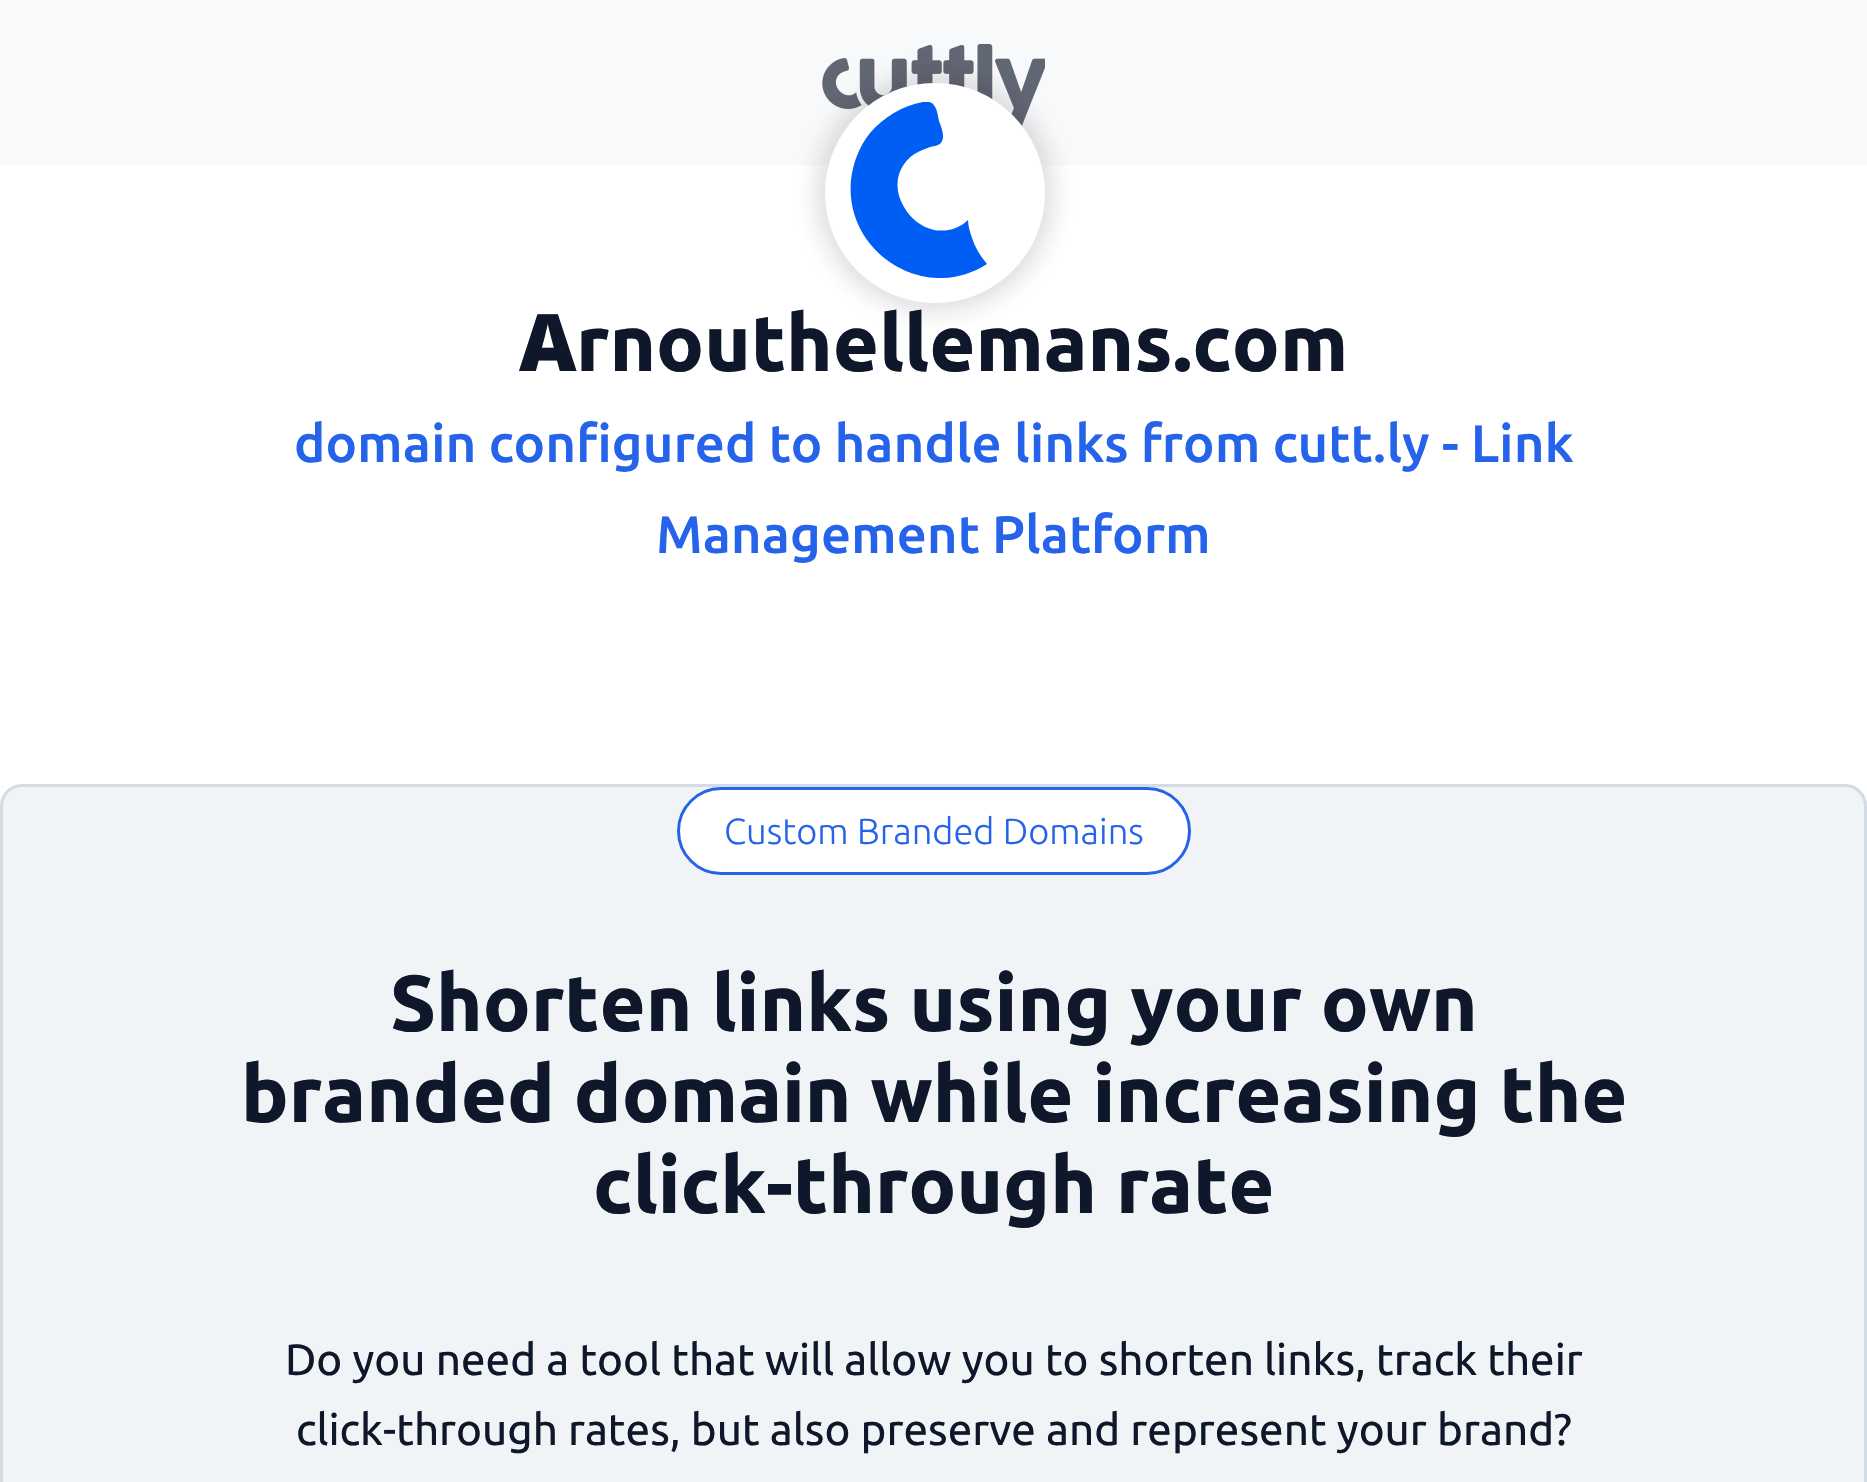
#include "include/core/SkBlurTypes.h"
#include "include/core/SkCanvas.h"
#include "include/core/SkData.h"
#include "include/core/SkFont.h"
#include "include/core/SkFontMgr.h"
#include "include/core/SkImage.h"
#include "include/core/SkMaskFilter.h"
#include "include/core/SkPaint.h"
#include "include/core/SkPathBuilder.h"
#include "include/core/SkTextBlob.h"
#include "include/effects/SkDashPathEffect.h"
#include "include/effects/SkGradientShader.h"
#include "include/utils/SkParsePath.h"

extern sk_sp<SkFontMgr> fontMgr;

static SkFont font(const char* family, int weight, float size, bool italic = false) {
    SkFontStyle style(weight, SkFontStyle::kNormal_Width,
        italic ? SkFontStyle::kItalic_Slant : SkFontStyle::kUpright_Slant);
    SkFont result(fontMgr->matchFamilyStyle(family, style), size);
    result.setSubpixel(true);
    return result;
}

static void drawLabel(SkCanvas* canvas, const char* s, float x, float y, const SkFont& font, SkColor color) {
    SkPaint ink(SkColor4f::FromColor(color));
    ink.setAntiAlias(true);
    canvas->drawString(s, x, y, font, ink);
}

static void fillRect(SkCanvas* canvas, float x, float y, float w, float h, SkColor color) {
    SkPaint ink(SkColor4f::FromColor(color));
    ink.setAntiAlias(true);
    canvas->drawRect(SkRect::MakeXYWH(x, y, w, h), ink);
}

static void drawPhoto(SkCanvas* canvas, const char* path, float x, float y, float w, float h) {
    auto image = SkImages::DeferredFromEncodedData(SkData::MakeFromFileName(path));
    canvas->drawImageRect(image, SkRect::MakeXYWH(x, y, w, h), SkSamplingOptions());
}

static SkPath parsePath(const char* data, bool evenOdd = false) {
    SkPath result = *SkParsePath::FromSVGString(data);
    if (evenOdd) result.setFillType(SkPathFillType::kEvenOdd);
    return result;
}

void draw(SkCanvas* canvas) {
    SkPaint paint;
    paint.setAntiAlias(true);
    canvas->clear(0xFFFFFFFF);
    fillRect(canvas, 0, 0, 1867, 165, 0xFFF8F9FB);
    drawPhoto(canvas, "assets/img1.png", 822, 44, 223, 82);
    paint.setColor(0x26111111);
    paint.setMaskFilter(SkMaskFilter::MakeBlur(kNormal_SkBlurStyle, 12.5f));
    canvas->drawRoundRect(SkRect::MakeXYWH(817, 74, 236, 237), 118, 118, paint);
    paint.setMaskFilter(nullptr);
    paint.setColor(0xFFFFFFFF);
    canvas->drawCircle(935, 193, 110, paint);
    canvas->save();
    canvas->clipRect(SkRect::MakeXYWH(831, 102, 176, 176));
    paint.setColor(0xFF005EF4);
    canvas->drawPath(parsePath("M972 238C970 232 968 226 968 220C959 229 946 232 934 230C921 227 910 218 904 207C891 186 898 161 920 151L930 147C934 146 940 146 942 141C945 136 941 126 939 121C937 111 936 99 922 102H923C902 106 884 117 870 133C859 147 853 163 851 180C844 253 926 304 987 264C980 256 975 247 972 238Z"), paint);
    canvas->restore();
    SkFont font1 = font("Noto Sans", 900, 79.25f);
    drawLabel(canvas, "A", 519, 371, font1, 0xFF0F172A);
    SkFont font2 = font("Ubuntu", 700, 79.25f);
    drawLabel(canvas, "rnouthellemans.com", 576, 371, font2, 0xFF0F172A);
    SkFont font3 = font("Ubuntu", 500, 52.8f);
    drawLabel(canvas, "domain configured to handle links from cutt.ly - Link", 294, 462, font3, 0xFF2563EB);
    drawLabel(canvas, "Management Platform", 656, 553, font3, 0xFF2563EB);
    canvas->save();
    canvas->clipPath(parsePath("M22 784H1845C1857 784 1867 794 1867 806V3179C1867 3191 1857 3201 1845 3201H22C10 3201 0 3191 0 3179V806C0 794 10 784 22 784Z"), true);
    {
        const SkColor colors[] = {0xFFFFFFFF, 0xFFF1F4F7};
        const float stops[] = {0, 1};
        SkMatrix m = SkMatrix::Translate(1865, 3198).preScale(931, 1085);
        paint.setShader(SkGradientShader::MakeRadial({0, 0}, 1, colors, stops, 2, SkTileMode::kClamp, 0, &m));
        paint.setAlpha(255);
    }
    canvas->drawRect(SkRect::MakeXYWH(3, 787, 1862, 695), paint);
    canvas->restore();
    paint.setStroke(true);
    paint.setStrokeWidth(3);
    paint.setShader(nullptr);
    paint.setColor(0xFFD3DBE5);
    canvas->drawRoundRect(SkRect::MakeXYWH(1.5f, 785.5f, 1864, 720), 20.5f, 20.5f, paint);
    paint.setStroke(false);
    paint.setColor(0xFFFFFFFF);
    canvas->drawRoundRect(SkRect::MakeXYWH(678.5f, 788.5f, 511, 85), 42.5f, 42.5f, paint);
    paint.setStroke(true);
    paint.setColor(0xFF2563EB);
    canvas->drawRoundRect(SkRect::MakeXYWH(678.5f, 788.5f, 511, 85), 42.5f, 42.5f, paint);
    SkFont font4 = font("Ubuntu", 300, 36.25f);
    drawLabel(canvas, "Custom Branded Domains", 724, 844, font4, 0xFF2563EB);
    drawLabel(canvas, "Shorten links using your own", 390, 1031, font2, 0xFF0F172A);
    drawLabel(canvas, "branded domain while increasing the", 241, 1122, font2, 0xFF0F172A);
    drawLabel(canvas, "click-through rate", 593, 1213, font2, 0xFF0F172A);
    SkFont font5 = font("Ubuntu", 400, 44);
    drawLabel(canvas, "Do you need a tool that will allow you to shorten links, track their", 285, 1375, font5, 0xFF0F172A);
    drawLabel(canvas, "click-through rates, but also preserve and represent your brand?", 296, 1445, font5, 0xFF0F172A);
}
